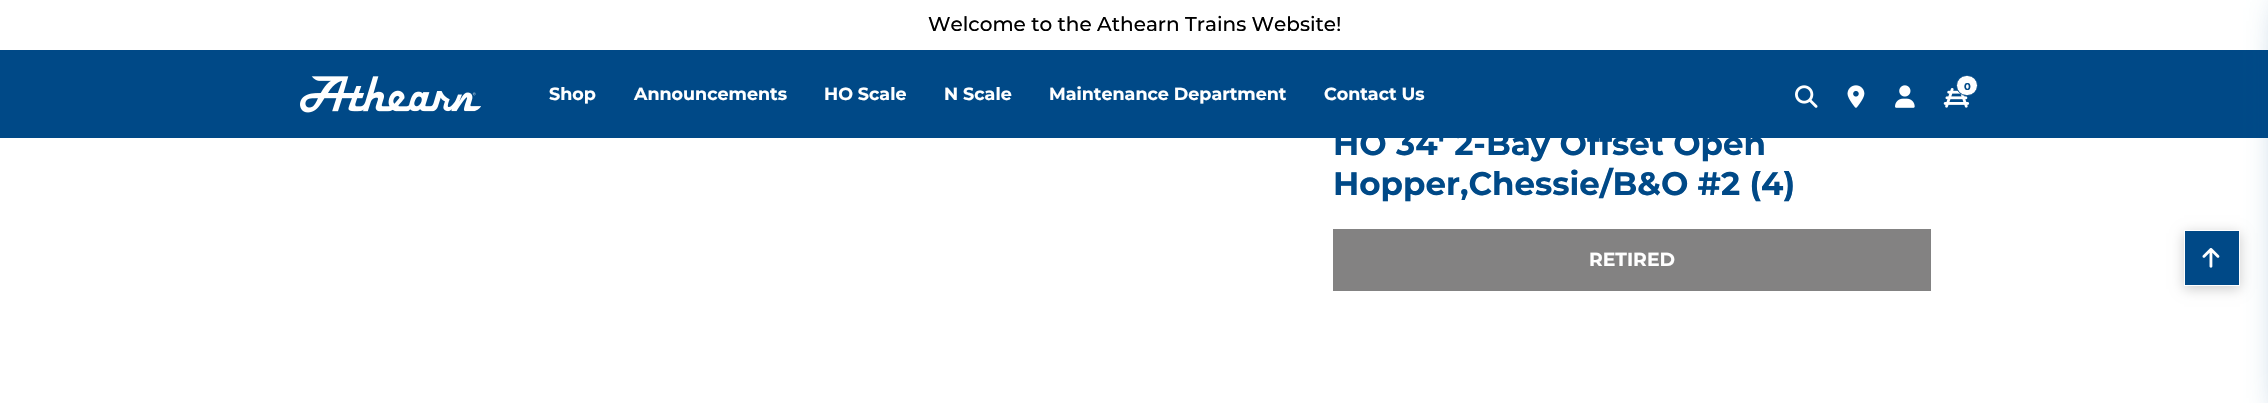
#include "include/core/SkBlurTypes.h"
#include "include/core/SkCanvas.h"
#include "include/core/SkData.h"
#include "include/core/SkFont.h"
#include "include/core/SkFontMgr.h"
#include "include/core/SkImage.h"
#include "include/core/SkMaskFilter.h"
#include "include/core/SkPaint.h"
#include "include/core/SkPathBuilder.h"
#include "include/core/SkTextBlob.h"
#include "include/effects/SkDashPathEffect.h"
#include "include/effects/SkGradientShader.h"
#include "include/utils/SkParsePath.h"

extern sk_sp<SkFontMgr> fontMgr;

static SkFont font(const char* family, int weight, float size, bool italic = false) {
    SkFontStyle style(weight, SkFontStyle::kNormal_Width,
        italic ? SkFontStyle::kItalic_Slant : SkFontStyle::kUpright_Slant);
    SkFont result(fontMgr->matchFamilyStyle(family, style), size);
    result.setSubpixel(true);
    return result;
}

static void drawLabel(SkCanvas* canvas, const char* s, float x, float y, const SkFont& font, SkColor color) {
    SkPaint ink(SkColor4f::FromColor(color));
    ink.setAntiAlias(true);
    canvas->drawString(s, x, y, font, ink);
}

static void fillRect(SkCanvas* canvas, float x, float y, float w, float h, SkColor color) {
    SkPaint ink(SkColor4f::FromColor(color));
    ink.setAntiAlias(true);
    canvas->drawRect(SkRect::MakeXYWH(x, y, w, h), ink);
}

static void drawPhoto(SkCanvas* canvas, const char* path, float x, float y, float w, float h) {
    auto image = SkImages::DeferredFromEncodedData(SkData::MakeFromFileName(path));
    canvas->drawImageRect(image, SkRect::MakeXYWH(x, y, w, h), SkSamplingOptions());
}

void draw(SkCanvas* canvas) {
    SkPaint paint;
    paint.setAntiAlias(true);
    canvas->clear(0xFFFFFFFF);
    fillRect(canvas, 0, 50, 2268, 88, 0xFF004987);
    SkFont font1 = font("Montserrat", 500, 20);
    drawLabel(canvas, "Welcome to the Athearn Trains Website!", 928, 31, font1, 0xFF000000);
    drawPhoto(canvas, "assets/img1.png", 300, 76, 181, 37);
    SkFont font2 = font("Montserrat", 700, 17.5f);
    drawLabel(canvas, "Shop", 549, 100, font2, 0xFFFFFFFF);
    drawLabel(canvas, "Announcements", 634, 100, font2, 0xFFFFFFFF);
    drawLabel(canvas, "HO Scale", 824, 100, font2, 0xFFFFFFFF);
    drawLabel(canvas, "N Scale", 944, 100, font2, 0xFFFFFFFF);
    drawLabel(canvas, "Maintenance Department", 1049, 100, font2, 0xFFFFFFFF);
    drawLabel(canvas, "Contact Us", 1324, 100, font2, 0xFFFFFFFF);
    drawPhoto(canvas, "assets/img2.png", 1795, 85, 23, 23);
    drawPhoto(canvas, "assets/img3.png", 1847, 85, 18, 23);
    drawPhoto(canvas, "assets/img4.png", 1895, 85, 20, 23);
    drawPhoto(canvas, "assets/img5.png", 1943, 88, 27, 20);
    paint.setColor(0xFFFFFFFF);
    canvas->drawRoundRect(SkRect::MakeXYWH(1956.5f, 75.5f, 21, 20), 10, 10, paint);
    paint.setStroke(true);
    paint.setStrokeWidth(1);
    paint.setColor(0xFF004987);
    canvas->drawRoundRect(SkRect::MakeXYWH(1956.5f, 75.5f, 21, 20), 10, 10, paint);
    SkFont font3 = font("Montserrat", 700, 10);
    drawLabel(canvas, "0", 1964, 90, font3, 0xFF004987);
    paint.setStroke(false);
    paint.setColor(0x33000000);
    paint.setMaskFilter(SkMaskFilter::MakeBlur(kNormal_SkBlurStyle, 6));
    canvas->drawRect(SkRect::MakeXYWH(2184, 233, 56, 56), paint);
    paint.setMaskFilter(nullptr);
    paint.setColor(0xFF004987);
    canvas->drawRect(SkRect::MakeXYWH(2184.5f, 230.5f, 55, 55), paint);
    paint.setStroke(true);
    paint.setColor(0xFFFFFFFF);
    canvas->drawRect(SkRect::MakeXYWH(2184.5f, 230.5f, 55, 55), paint);
    paint.setStroke(false);
    paint.setColor(0x99004987);
    paint.setMaskFilter(SkMaskFilter::MakeBlur(kNormal_SkBlurStyle, 19));
    canvas->drawRect(SkRect::MakeXYWH(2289, 8, 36, 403), paint);
    paint.setMaskFilter(nullptr);
    SkFont font4 = font("Montserrat", 700, 32.5f);
    drawLabel(canvas, "HO 34' 2-Bay Offset Open", 1333, 155, font4, 0xFF004987);
    drawLabel(canvas, "Hopper,Chessie/B&O #2 (4)", 1333, 195, font4, 0xFF004987);
    fillRect(canvas, 1333, 229, 598, 62, 0xFF838282);
    SkFont font5 = font("Montserrat", 700, 18.75f);
    drawLabel(canvas, "RETIRED", 1589, 266, font5, 0xFFFFFFFF);
    drawPhoto(canvas, "assets/img6.png", 2202, 248, 18, 20);
}
